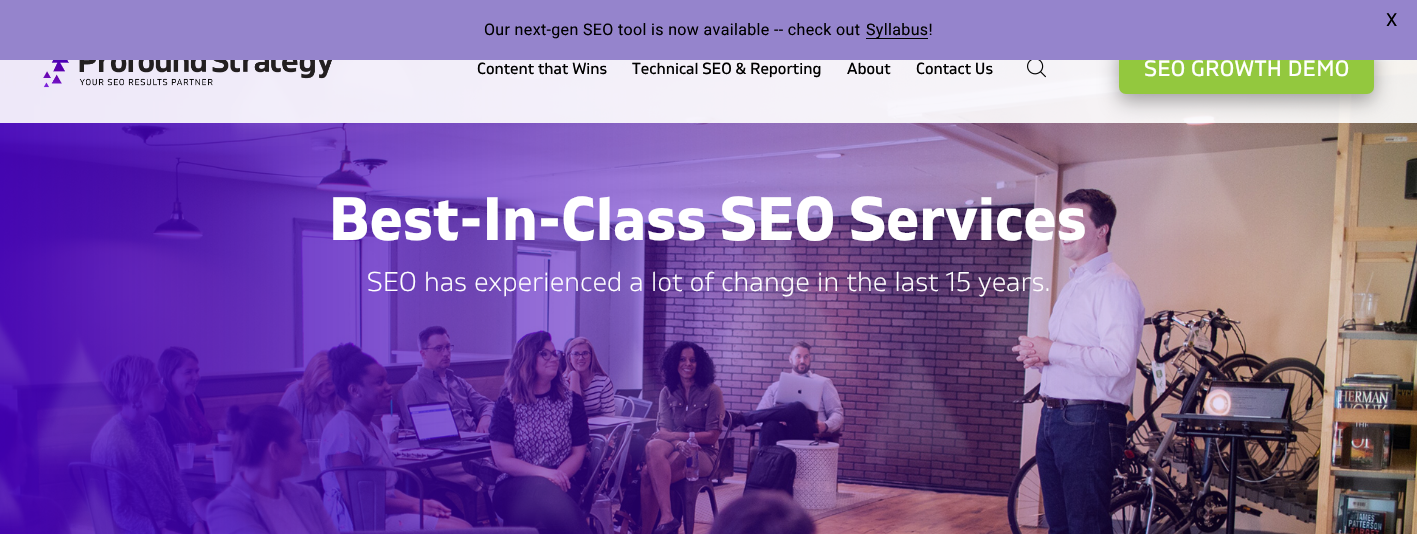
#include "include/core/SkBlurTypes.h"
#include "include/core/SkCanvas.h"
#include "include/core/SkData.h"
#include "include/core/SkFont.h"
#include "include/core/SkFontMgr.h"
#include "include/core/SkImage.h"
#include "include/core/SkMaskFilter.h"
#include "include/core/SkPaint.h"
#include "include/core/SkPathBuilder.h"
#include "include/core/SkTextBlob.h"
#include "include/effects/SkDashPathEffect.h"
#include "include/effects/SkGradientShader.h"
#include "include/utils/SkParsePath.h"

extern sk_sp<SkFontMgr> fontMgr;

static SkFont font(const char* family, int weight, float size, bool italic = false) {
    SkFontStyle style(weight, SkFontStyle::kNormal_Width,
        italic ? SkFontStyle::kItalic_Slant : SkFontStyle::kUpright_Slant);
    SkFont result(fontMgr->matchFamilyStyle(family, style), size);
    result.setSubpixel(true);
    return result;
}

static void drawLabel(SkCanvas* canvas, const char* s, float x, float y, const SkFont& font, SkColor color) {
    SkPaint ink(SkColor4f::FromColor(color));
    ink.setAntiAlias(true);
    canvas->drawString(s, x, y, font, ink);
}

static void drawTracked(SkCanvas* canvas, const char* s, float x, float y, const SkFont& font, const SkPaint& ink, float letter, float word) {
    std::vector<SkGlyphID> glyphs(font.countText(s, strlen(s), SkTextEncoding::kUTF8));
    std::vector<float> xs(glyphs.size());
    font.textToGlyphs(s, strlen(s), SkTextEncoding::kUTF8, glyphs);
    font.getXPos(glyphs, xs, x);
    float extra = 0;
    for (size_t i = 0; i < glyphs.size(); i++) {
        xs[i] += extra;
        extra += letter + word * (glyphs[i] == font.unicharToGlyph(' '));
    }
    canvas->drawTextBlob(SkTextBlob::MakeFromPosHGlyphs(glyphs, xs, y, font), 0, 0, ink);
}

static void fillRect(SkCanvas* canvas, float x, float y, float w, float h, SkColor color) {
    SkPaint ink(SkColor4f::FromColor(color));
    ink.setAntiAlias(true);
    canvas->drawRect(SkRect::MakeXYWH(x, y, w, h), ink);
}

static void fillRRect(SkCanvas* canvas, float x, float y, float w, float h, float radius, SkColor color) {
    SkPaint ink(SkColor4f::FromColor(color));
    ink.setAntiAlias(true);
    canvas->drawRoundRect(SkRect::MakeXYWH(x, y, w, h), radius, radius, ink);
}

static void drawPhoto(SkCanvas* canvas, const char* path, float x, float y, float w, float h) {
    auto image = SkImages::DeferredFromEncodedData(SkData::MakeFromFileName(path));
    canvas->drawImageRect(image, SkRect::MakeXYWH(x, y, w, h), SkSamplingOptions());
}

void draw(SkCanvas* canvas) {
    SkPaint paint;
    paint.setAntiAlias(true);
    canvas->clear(0xFFFFFFFF);
    drawPhoto(canvas, "assets/img3.png", 0, 60, 1417, 474);
    drawPhoto(canvas, "assets/img4.png", 0, 60, 1414, 474);
    fillRect(canvas, 0, 60, 1417, 63, 0xE6FFFFFF);
    paint.setColor(0x57000000);
    paint.setMaskFilter(SkMaskFilter::MakeBlur(kNormal_SkBlurStyle, 9.5f));
    canvas->drawRoundRect(SkRect::MakeXYWH(1119, 49, 255, 52), 7, 7, paint);
    paint.setMaskFilter(nullptr);
    fillRRect(canvas, 1119, 42, 255, 52, 7, 0xFF93C83E);
    fillRect(canvas, 0, 0, 1417, 60, 0xFF9584CC);
    SkFont font1 = font("Roboto", 400, 18);
    paint.setColor(0xFF000000);
    drawTracked(canvas, "X", 1386, 26, font1, paint, 0.35f, 0);
    SkFont font2 = font("Roboto", 400, 16);
    drawTracked(canvas, "Our next-gen SEO tool is now available -- check out", 484, 35, font2, paint, 0.35f, 0);
    fillRect(canvas, 866, 38, 62, 1, 0xFF000000);
    drawTracked(canvas, "Syllabus!", 866, 35, font2, paint, 0.35f, 0);
    drawPhoto(canvas, "assets/img1.png", 43, 60, 289, 28);
    SkFont font3 = font("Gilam", 400, 16);
    drawLabel(canvas, "Content that Wins", 477, 74, font3, 0xFF000000);
    drawLabel(canvas, "Technical SEO & Reporting", 632, 74, font3, 0xFF000000);
    drawLabel(canvas, "About", 847, 74, font3, 0xFF000000);
    drawLabel(canvas, "Contact Us", 916, 74, font3, 0xFF000000);
    drawPhoto(canvas, "assets/img2.png", 1027, 60, 19, 18);
    SkFont font4 = font("Gilam", 400, 22);
    paint.setColor(0xFFFFFFFF);
    drawTracked(canvas, "SEO GROWTH DEMO", 1144, 76, font4, paint, 0.35f, 0);
    SkFont font5 = font("Gilam", 700, 61);
    drawTracked(canvas, "Best-In-Class SEO Services", 329, 240, font5, paint, 0.35f, 0);
    SkFont font6 = font("Gilam", 300, 27);
    drawTracked(canvas, "SEO has experienced a lot of change in the last 15 years.", 367, 291, font6, paint, 0.35f, 0);
}
